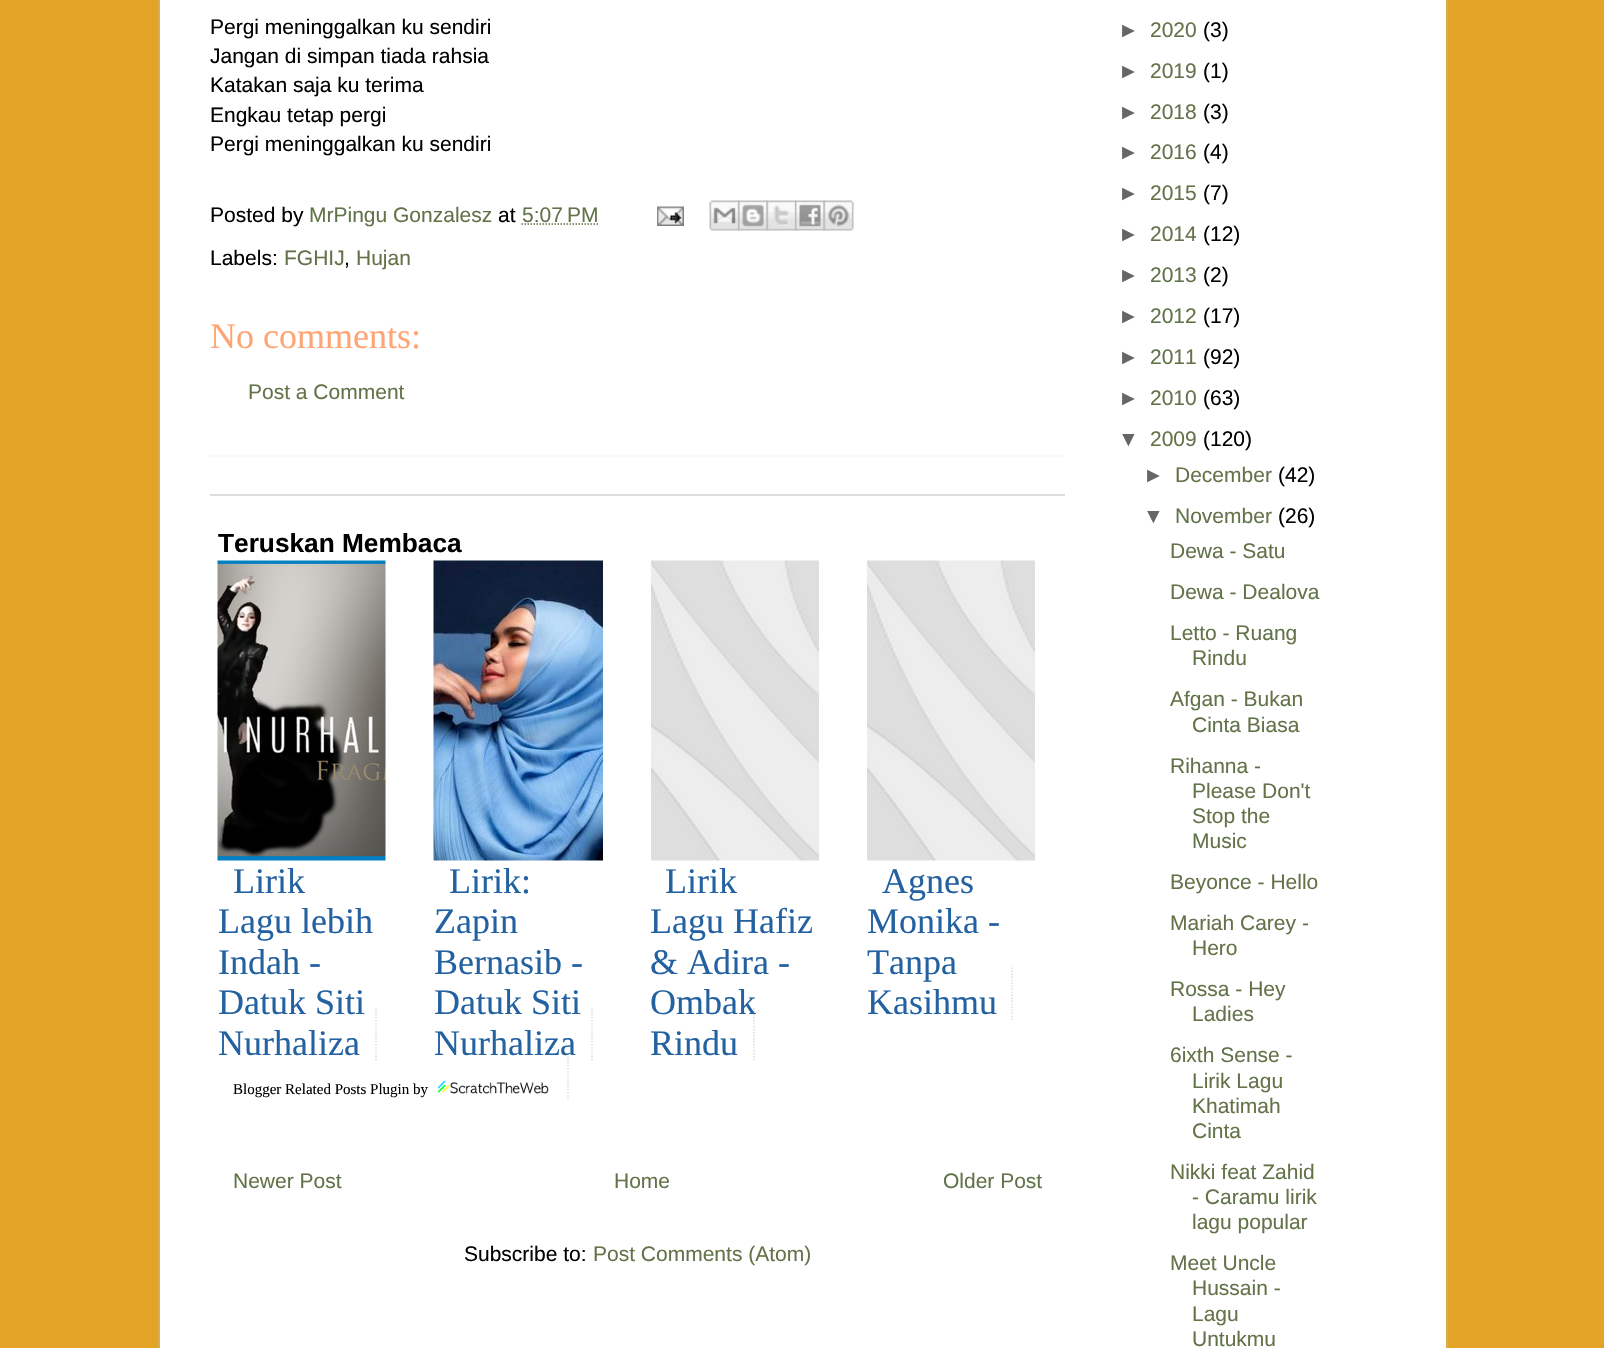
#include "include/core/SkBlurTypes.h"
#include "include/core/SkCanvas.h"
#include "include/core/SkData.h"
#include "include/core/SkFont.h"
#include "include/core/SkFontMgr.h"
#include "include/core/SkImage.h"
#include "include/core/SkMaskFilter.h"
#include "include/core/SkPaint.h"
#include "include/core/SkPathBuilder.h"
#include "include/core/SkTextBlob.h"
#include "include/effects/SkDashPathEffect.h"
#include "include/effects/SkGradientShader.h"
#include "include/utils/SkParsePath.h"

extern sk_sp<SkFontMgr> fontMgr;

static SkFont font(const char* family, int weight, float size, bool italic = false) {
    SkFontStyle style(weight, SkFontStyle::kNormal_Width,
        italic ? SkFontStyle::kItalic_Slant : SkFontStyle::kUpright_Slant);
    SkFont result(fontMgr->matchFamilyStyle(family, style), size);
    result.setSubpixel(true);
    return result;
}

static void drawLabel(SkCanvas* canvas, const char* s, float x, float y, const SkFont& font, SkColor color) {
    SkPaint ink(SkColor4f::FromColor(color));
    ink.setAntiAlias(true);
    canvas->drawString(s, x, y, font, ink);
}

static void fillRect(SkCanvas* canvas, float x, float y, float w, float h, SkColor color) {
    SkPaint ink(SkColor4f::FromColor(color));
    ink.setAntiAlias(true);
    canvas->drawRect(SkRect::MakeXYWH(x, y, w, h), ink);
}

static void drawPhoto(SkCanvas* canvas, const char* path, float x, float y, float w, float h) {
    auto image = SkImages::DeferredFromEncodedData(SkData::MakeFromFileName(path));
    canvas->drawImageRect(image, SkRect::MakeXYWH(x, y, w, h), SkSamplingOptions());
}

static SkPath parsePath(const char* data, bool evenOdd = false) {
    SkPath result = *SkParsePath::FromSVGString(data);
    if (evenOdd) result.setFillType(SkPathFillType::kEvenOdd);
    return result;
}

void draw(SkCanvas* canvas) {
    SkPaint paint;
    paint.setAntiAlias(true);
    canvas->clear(0xFFE3A327);
    fillRect(canvas, 160, 0, 1286, 1348, 0xFFFFFFFF);
    fillRect(canvas, 1446, 0, 2, 1348, 0xFFD8AF4C);
    fillRect(canvas, 158, 0, 2, 1348, 0xFFD8AF4C);
    fillRect(canvas, 210, 455, 855, 2, 0xFFF9F9F9);
    SkFont font1 = font("Liberation Sans", 400, 21);
    drawLabel(canvas, "Pergi meninggalkan ku sendiri", 210, 34, font1, 0xFF000000);
    drawLabel(canvas, "Jangan di simpan tiada rahsia", 210, 63, font1, 0xFF000000);
    drawLabel(canvas, "Katakan saja ku terima", 210, 92, font1, 0xFF000000);
    drawLabel(canvas, "Engkau tetap pergi", 210, 122, font1, 0xFF000000);
    drawLabel(canvas, "Pergi meninggalkan ku sendiri", 210, 151, font1, 0xFF000000);
    drawLabel(canvas, "Posted by", 210, 222, font1, 0xFF000000);
    drawLabel(canvas, "MrPingu Gonzalesz", 309, 222, font1, 0xFF627349);
    drawLabel(canvas, "at", 498, 222, font1, 0xFF000000);
    drawLabel(canvas, "5:07 PM", 522, 222, font1, 0xFF627349);
    paint.setStroke(true);
    paint.setStrokeWidth(1.5f);
    paint.setColor(0xFF627349);
    paint.setPathEffect(SkDashPathEffect::Make({{1.5f, 1.5f}}, 0));
    canvas->drawPath(parsePath("M521.5 224H598.5"), paint);
    paint.setPathEffect(nullptr);
    drawPhoto(canvas, "assets/img1.png", 657, 206, 27, 20);
    drawPhoto(canvas, "assets/img2.png", 709, 200, 31, 31);
    drawPhoto(canvas, "assets/img3.png", 738, 200, 30, 31);
    drawPhoto(canvas, "assets/img4.png", 766, 200, 31, 31);
    drawPhoto(canvas, "assets/img5.png", 795, 200, 30, 31);
    drawPhoto(canvas, "assets/img6.png", 823, 200, 31, 31);
    drawLabel(canvas, "Labels:", 210, 265, font1, 0xFF000000);
    drawLabel(canvas, "FGHIJ", 284, 265, font1, 0xFF627349);
    drawLabel(canvas, ",", 344, 265, font1, 0xFF000000);
    drawLabel(canvas, "Hujan", 356, 265, font1, 0xFF627349);
    SkFont font2 = font("Liberation Serif", 400, 36);
    drawLabel(canvas, "No comments:", 210, 348, font2, 0xFFFFA575);
    drawLabel(canvas, "Post a Comment", 248, 399, font1, 0xFF627349);
    fillRect(canvas, 210, 494, 855, 2, 0xFFDDDDDD);
    SkFont font3 = font("Liberation Sans", 700, 26.25f);
    drawLabel(canvas, "Teruskan Membaca", 218, 552, font3, 0xFF000000);
    drawPhoto(canvas, "assets/img7.png", 217, 560, 169, 301);
    drawLabel(canvas, "Lirik", 233, 893, font2, 0xFF2361A1);
    drawLabel(canvas, "Lagu lebih", 218, 933, font2, 0xFF2361A1);
    drawLabel(canvas, "Indah -", 218, 974, font2, 0xFF2361A1);
    drawLabel(canvas, "Datuk Siti", 218, 1014, font2, 0xFF2361A1);
    drawLabel(canvas, "Nurhaliza", 218, 1055, font2, 0xFF2361A1);
    paint.setColor(0xFFDDDDDD);
    paint.setPathEffect(SkDashPathEffect::Make({{1.5f, 1.5f}}, 0));
    canvas->drawPath(parsePath("M376 1008V1062"), paint);
    paint.setPathEffect(nullptr);
    drawPhoto(canvas, "assets/img8.png", 433, 560, 170, 301);
    drawLabel(canvas, "Lirik:", 449, 893, font2, 0xFF2361A1);
    drawLabel(canvas, "Zapin", 434, 933, font2, 0xFF2361A1);
    drawLabel(canvas, "Bernasib -", 434, 974, font2, 0xFF2361A1);
    drawLabel(canvas, "Datuk Siti", 434, 1014, font2, 0xFF2361A1);
    drawLabel(canvas, "Nurhaliza", 434, 1055, font2, 0xFF2361A1);
    paint.setPathEffect(SkDashPathEffect::Make({{1.5f, 1.5f}}, 0));
    canvas->drawPath(parsePath("M592 1008V1062"), paint);
    paint.setPathEffect(nullptr);
    drawPhoto(canvas, "assets/img9.png", 651, 560, 168, 301);
    drawLabel(canvas, "Lirik", 665, 893, font2, 0xFF2361A1);
    drawLabel(canvas, "Lagu Hafiz", 650, 933, font2, 0xFF2361A1);
    drawLabel(canvas, "& Adira -", 650, 974, font2, 0xFF2361A1);
    paint.setPathEffect(SkDashPathEffect::Make({{1.5f, 1.5f}}, 0));
    canvas->drawPath(parsePath("M754 1008V1062"), paint);
    paint.setPathEffect(nullptr);
    drawLabel(canvas, "Ombak", 650, 1014, font2, 0xFF2361A1);
    drawLabel(canvas, "Rindu", 650, 1055, font2, 0xFF2361A1);
    drawPhoto(canvas, "assets/img9.png", 867, 560, 168, 301);
    drawLabel(canvas, "Agnes", 882, 893, font2, 0xFF2361A1);
    drawLabel(canvas, "Monika -", 867, 933, font2, 0xFF2361A1);
    drawLabel(canvas, "Tanpa", 867, 974, font2, 0xFF2361A1);
    drawLabel(canvas, "Kasihmu", 867, 1014, font2, 0xFF2361A1);
    paint.setPathEffect(SkDashPathEffect::Make({{1.5f, 1.5f}}, 0));
    canvas->drawPath(parsePath("M1012 967.5V1021.5"), paint);
    paint.setPathEffect(nullptr);
    SkFont font4 = font("Liberation Serif", 400, 15);
    drawLabel(canvas, "Blogger Related Posts Plugin by", 233, 1094, font4, 0xFF000000);
    paint.setPathEffect(SkDashPathEffect::Make({{1.5f, 1.5f}}, 0));
    canvas->drawPath(parsePath("M568 1056V1101"), paint);
    paint.setPathEffect(nullptr);
    drawPhoto(canvas, "assets/img10.png", 437, 1080, 112, 14);
    drawLabel(canvas, "Newer Post", 233, 1188, font1, 0xFF627349);
    drawLabel(canvas, "Home", 614, 1188, font1, 0xFF627349);
    drawLabel(canvas, "Older Post", 943, 1188, font1, 0xFF627349);
    drawLabel(canvas, "Subscribe to:", 464, 1261, font1, 0xFF000000);
    drawLabel(canvas, "Post Comments (Atom)", 593, 1261, font1, 0xFF627349);
    drawLabel(canvas, "►", 1118, 37, font1, 0xFF666666);
    drawLabel(canvas, "2020", 1150, 37, font1, 0xFF627349);
    drawLabel(canvas, "(3)", 1203, 37, font1, 0xFF000000);
    drawLabel(canvas, "►", 1118, 78, font1, 0xFF666666);
    drawLabel(canvas, "2019", 1150, 78, font1, 0xFF627349);
    drawLabel(canvas, "(1)", 1203, 78, font1, 0xFF000000);
    drawLabel(canvas, "►", 1118, 119, font1, 0xFF666666);
    drawLabel(canvas, "2018", 1150, 119, font1, 0xFF627349);
    drawLabel(canvas, "(3)", 1203, 119, font1, 0xFF000000);
    drawLabel(canvas, "►", 1118, 159, font1, 0xFF666666);
    drawLabel(canvas, "2016", 1150, 159, font1, 0xFF627349);
    drawLabel(canvas, "(4)", 1203, 159, font1, 0xFF000000);
    drawLabel(canvas, "►", 1118, 200, font1, 0xFF666666);
    drawLabel(canvas, "2015", 1150, 200, font1, 0xFF627349);
    drawLabel(canvas, "(7)", 1203, 200, font1, 0xFF000000);
    drawLabel(canvas, "►", 1118, 241, font1, 0xFF666666);
    drawLabel(canvas, "2014", 1150, 241, font1, 0xFF627349);
    drawLabel(canvas, "(12)", 1203, 241, font1, 0xFF000000);
    drawLabel(canvas, "►", 1118, 282, font1, 0xFF666666);
    drawLabel(canvas, "2013", 1150, 282, font1, 0xFF627349);
    drawLabel(canvas, "(2)", 1203, 282, font1, 0xFF000000);
    drawLabel(canvas, "►", 1118, 323, font1, 0xFF666666);
    drawLabel(canvas, "2012", 1150, 323, font1, 0xFF627349);
    drawLabel(canvas, "(17)", 1203, 323, font1, 0xFF000000);
    drawLabel(canvas, "►", 1118, 364, font1, 0xFF666666);
    drawLabel(canvas, "2011", 1150, 364, font1, 0xFF627349);
    drawLabel(canvas, "(92)", 1203, 364, font1, 0xFF000000);
    drawLabel(canvas, "►", 1118, 405, font1, 0xFF666666);
    drawLabel(canvas, "2010", 1150, 405, font1, 0xFF627349);
    drawLabel(canvas, "(63)", 1203, 405, font1, 0xFF000000);
    drawLabel(canvas, "▼", 1118, 446, font1, 0xFF666666);
    drawLabel(canvas, "2009", 1150, 446, font1, 0xFF627349);
    drawLabel(canvas, "(120)", 1203, 446, font1, 0xFF000000);
    drawLabel(canvas, "►", 1143, 482, font1, 0xFF666666);
    drawLabel(canvas, "December", 1175, 482, font1, 0xFF627349);
    drawLabel(canvas, "(42)", 1278, 482, font1, 0xFF000000);
    drawLabel(canvas, "▼", 1143, 523, font1, 0xFF666666);
    drawLabel(canvas, "November", 1175, 523, font1, 0xFF627349);
    drawLabel(canvas, "(26)", 1278, 523, font1, 0xFF000000);
    drawLabel(canvas, "Dewa - Satu", 1170, 558, font1, 0xFF627349);
    drawLabel(canvas, "Dewa - Dealova", 1170, 599, font1, 0xFF627349);
    drawLabel(canvas, "Letto - Ruang", 1170, 640, font1, 0xFF627349);
    drawLabel(canvas, "Rindu", 1192, 665, font1, 0xFF627349);
    drawLabel(canvas, "Afgan - Bukan", 1170, 706, font1, 0xFF627349);
    drawLabel(canvas, "Cinta Biasa", 1192, 732, font1, 0xFF627349);
    drawLabel(canvas, "Rihanna -", 1170, 773, font1, 0xFF627349);
    drawLabel(canvas, "Please Don't", 1192, 798, font1, 0xFF627349);
    drawLabel(canvas, "Stop the", 1192, 823, font1, 0xFF627349);
    drawLabel(canvas, "Music", 1192, 848, font1, 0xFF627349);
    drawLabel(canvas, "Beyonce - Hello", 1170, 889, font1, 0xFF627349);
    drawLabel(canvas, "Mariah Carey -", 1170, 930, font1, 0xFF627349);
    drawLabel(canvas, "Hero", 1192, 955, font1, 0xFF627349);
    drawLabel(canvas, "Rossa - Hey", 1170, 996, font1, 0xFF627349);
    drawLabel(canvas, "Ladies", 1192, 1021, font1, 0xFF627349);
    drawLabel(canvas, "6ixth Sense -", 1170, 1062, font1, 0xFF627349);
    drawLabel(canvas, "Lirik Lagu", 1192, 1088, font1, 0xFF627349);
    drawLabel(canvas, "Khatimah", 1192, 1113, font1, 0xFF627349);
    drawLabel(canvas, "Cinta", 1192, 1138, font1, 0xFF627349);
    drawLabel(canvas, "Nikki feat Zahid", 1170, 1179, font1, 0xFF627349);
    drawLabel(canvas, "- Caramu lirik", 1192, 1204, font1, 0xFF627349);
    drawLabel(canvas, "lagu popular", 1192, 1229, font1, 0xFF627349);
    drawLabel(canvas, "Meet Uncle", 1170, 1270, font1, 0xFF627349);
    drawLabel(canvas, "Hussain -", 1192, 1295, font1, 0xFF627349);
    drawLabel(canvas, "Lagu", 1192, 1321, font1, 0xFF627349);
    drawLabel(canvas, "Untukmu", 1192, 1346, font1, 0xFF627349);
}
